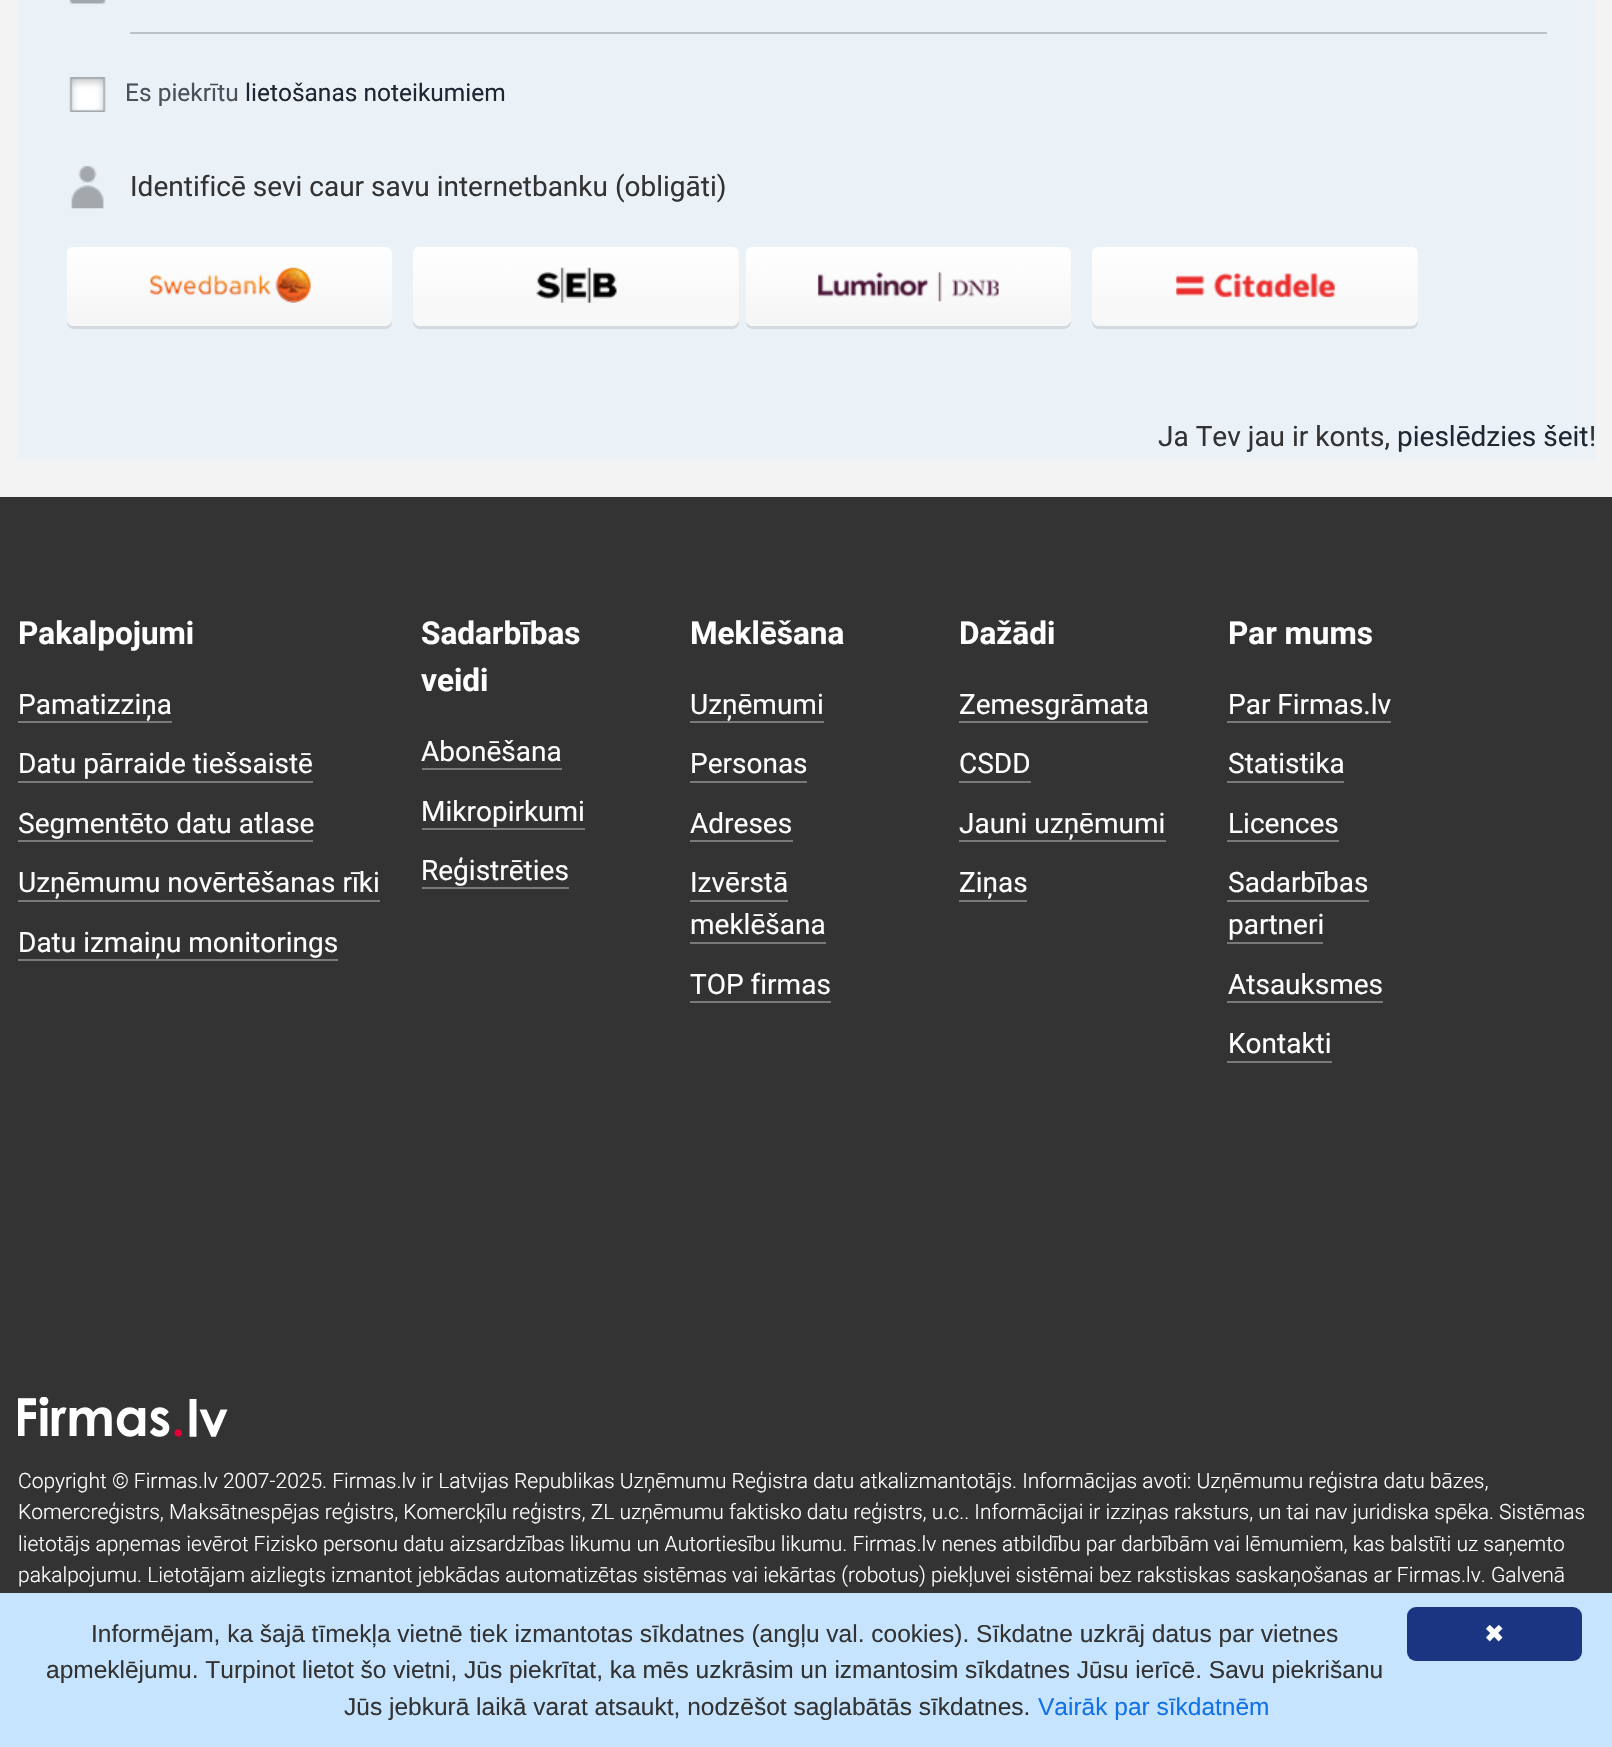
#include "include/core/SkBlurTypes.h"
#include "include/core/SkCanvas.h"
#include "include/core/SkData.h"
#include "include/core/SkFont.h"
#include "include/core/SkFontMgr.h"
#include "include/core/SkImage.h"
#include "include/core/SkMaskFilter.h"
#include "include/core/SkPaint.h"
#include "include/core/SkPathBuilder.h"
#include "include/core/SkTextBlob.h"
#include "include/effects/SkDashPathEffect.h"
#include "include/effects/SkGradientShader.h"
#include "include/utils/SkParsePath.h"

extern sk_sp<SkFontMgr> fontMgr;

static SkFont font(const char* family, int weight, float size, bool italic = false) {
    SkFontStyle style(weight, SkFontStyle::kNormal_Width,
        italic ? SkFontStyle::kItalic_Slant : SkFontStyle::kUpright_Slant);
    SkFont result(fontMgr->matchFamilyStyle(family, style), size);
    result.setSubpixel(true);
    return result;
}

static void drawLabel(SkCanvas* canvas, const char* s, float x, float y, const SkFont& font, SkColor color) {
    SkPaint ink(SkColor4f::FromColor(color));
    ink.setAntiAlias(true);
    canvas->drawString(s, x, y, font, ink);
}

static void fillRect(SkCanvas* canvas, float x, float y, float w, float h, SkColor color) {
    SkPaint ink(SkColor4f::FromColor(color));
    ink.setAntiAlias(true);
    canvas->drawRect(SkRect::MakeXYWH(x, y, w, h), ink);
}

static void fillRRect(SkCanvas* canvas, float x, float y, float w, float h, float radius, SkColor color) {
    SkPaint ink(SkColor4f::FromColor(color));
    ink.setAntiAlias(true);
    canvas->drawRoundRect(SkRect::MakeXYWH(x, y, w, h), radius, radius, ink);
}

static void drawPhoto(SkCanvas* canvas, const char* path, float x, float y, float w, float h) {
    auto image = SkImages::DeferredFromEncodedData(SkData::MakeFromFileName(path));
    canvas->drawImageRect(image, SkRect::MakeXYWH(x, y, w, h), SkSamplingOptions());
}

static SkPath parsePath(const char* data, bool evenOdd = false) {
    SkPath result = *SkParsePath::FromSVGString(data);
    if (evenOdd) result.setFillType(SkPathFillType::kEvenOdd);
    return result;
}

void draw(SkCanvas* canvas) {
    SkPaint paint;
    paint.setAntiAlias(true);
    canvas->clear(0xFFF3F3F3);
    fillRect(canvas, 18, 0, 1578, 459, 0xFFEAF1F7);
    drawPhoto(canvas, "assets/img1.png", 69, 0, 37, 4);
    fillRect(canvas, 130, 32, 1417, 2, 0xFFBDC2C7);
    drawPhoto(canvas, "assets/img2.png", 69, 77, 37, 35);
    SkFont font1 = font("Roboto", 400, 24.5f);
    drawLabel(canvas, "Es piekrītu", 125, 101, font1, 0xFF4D515D);
    drawLabel(canvas, "lietošanas noteikumiem", 245, 101, font1, 0xFF212635);
    drawPhoto(canvas, "assets/img3.png", 71, 166, 33, 43);
    SkFont font2 = font("Roboto", 400, 28);
    drawLabel(canvas, "Identificē sevi caur savu internetbanku (obligāti)", 130, 196, font2, 0xFF333333);
    paint.setColor(0xFFD3D9DE);
    canvas->drawPath(parsePath("M67 321V322C67 326 70 329 74 329H385C389 329 392 326 392 322V318C392 322 389 326 385 326H74C71 326 68 324 67 321Z"), paint);
    fillRRect(canvas, 67, 247, 325, 79, 7, 0xFFF8F8F8);
    drawPhoto(canvas, "assets/img4.png", 66, 247, 326, 77);
    canvas->drawPath(parsePath("M413 318V322C413 326 416 329 420 329H732C736 329 739 326 739 322V257L738 254V318C738 322 735 326 732 326H420C416 326 413 322 413 318Z"), paint);
    fillRRect(canvas, 413, 247, 326, 79, 7, 0xFFF8F8F8);
    drawPhoto(canvas, "assets/img5.png", 413, 247, 325, 56);
    canvas->drawPath(parsePath("M746 321V322C746 326 749 329 753 329H1064C1068 329 1071 326 1071 322V318C1071 322 1068 326 1064 326H752C750 326 747 324 746 321Z"), paint);
    fillRRect(canvas, 746, 247, 325, 79, 7, 0xFFF8F8F8);
    drawPhoto(canvas, "assets/img6.png", 745, 247, 326, 77);
    canvas->drawPath(parsePath("M1092 318V322C1092 326 1095 329 1099 329H1411C1415 329 1418 326 1418 322V257V254V318C1418 322 1414 326 1410 326H1099C1095 326 1092 322 1092 318Z"), paint);
    fillRRect(canvas, 1092, 247, 326, 79, 7, 0xFFF8F8F8);
    drawPhoto(canvas, "assets/img7.png", 1092, 247, 325, 51);
    drawLabel(canvas, "Ja Tev jau ir konts,", 1158, 446, font2, 0xFF333333);
    drawLabel(canvas, "pieslēdzies šeit", 1397, 446, font2, 0xFF212635);
    drawLabel(canvas, "!", 1589, 446, font2, 0xFF333333);
    fillRect(canvas, 0, 497, 1612, 1096, 0xFF333333);
    SkFont font3 = font("Roboto", 700, 31.5f);
    drawLabel(canvas, "Pakalpojumi", 18, 644, font3, 0xFFFFFFFF);
    drawLabel(canvas, "Pamatizziņa", 18, 714, font2, 0xFFFFFFFF);
    fillRect(canvas, 18, 721, 154, 2, 0xFF7A7A7A);
    drawLabel(canvas, "Datu pārraide tiešsaistē", 18, 773, font2, 0xFFFFFFFF);
    fillRect(canvas, 18, 781, 295, 2, 0xFF7A7A7A);
    drawLabel(canvas, "Segmentēto datu atlase", 18, 833, font2, 0xFFFFFFFF);
    fillRect(canvas, 18, 840, 295, 2, 0xFF7A7A7A);
    drawLabel(canvas, "Uzņēmumu novērtēšanas rīki", 18, 892, font2, 0xFFFFFFFF);
    fillRect(canvas, 18, 900, 362, 2, 0xFF7A7A7A);
    drawLabel(canvas, "Datu izmaiņu monitorings", 18, 952, font2, 0xFFFFFFFF);
    fillRect(canvas, 18, 959, 320, 2, 0xFF7A7A7A);
    drawLabel(canvas, "Sadarbības", 421, 644, font3, 0xFFFFFFFF);
    drawLabel(canvas, "veidi", 421, 691, font3, 0xFFFFFFFF);
    drawLabel(canvas, "Abonēšana", 421, 761, font2, 0xFFFFFFFF);
    fillRect(canvas, 422, 768, 140, 2, 0xFF7A7A7A);
    drawLabel(canvas, "Mikropirkumi", 421, 821, font2, 0xFFFFFFFF);
    fillRect(canvas, 422, 828, 163, 2, 0xFF7A7A7A);
    drawLabel(canvas, "Reģistrēties", 421, 880, font2, 0xFFFFFFFF);
    fillRect(canvas, 422, 887, 147, 2, 0xFF7A7A7A);
    drawLabel(canvas, "Meklēšana", 690, 644, font3, 0xFFFFFFFF);
    drawLabel(canvas, "Uzņēmumi", 690, 714, font2, 0xFFFFFFFF);
    fillRect(canvas, 690, 721, 134, 2, 0xFF7A7A7A);
    drawLabel(canvas, "Personas", 690, 773, font2, 0xFFFFFFFF);
    fillRect(canvas, 690, 781, 117, 2, 0xFF7A7A7A);
    drawLabel(canvas, "Adreses", 690, 833, font2, 0xFFFFFFFF);
    fillRect(canvas, 690, 840, 103, 2, 0xFF7A7A7A);
    drawLabel(canvas, "Izvērstā", 690, 892, font2, 0xFFFFFFFF);
    fillRect(canvas, 690, 900, 98, 2, 0xFF7A7A7A);
    drawLabel(canvas, "meklēšana", 690, 934, font2, 0xFFFFFFFF);
    fillRect(canvas, 690, 942, 136, 2, 0xFF7A7A7A);
    drawLabel(canvas, "TOP firmas", 690, 994, font2, 0xFFFFFFFF);
    fillRect(canvas, 690, 1001, 141, 2, 0xFF7A7A7A);
    drawLabel(canvas, "Dažādi", 959, 644, font3, 0xFFFFFFFF);
    drawLabel(canvas, "Zemesgrāmata", 959, 714, font2, 0xFFFFFFFF);
    fillRect(canvas, 959, 721, 189, 2, 0xFF7A7A7A);
    drawLabel(canvas, "CSDD", 959, 773, font2, 0xFFFFFFFF);
    fillRect(canvas, 959, 781, 72, 2, 0xFF7A7A7A);
    drawLabel(canvas, "Jauni uzņēmumi", 959, 833, font2, 0xFFFFFFFF);
    fillRect(canvas, 959, 840, 207, 2, 0xFF7A7A7A);
    drawLabel(canvas, "Ziņas", 959, 892, font2, 0xFFFFFFFF);
    fillRect(canvas, 959, 900, 68, 2, 0xFF7A7A7A);
    drawLabel(canvas, "Par mums", 1228, 644, font3, 0xFFFFFFFF);
    drawLabel(canvas, "Par Firmas.lv", 1228, 714, font2, 0xFFFFFFFF);
    fillRect(canvas, 1227, 721, 164, 2, 0xFF7A7A7A);
    drawLabel(canvas, "Statistika", 1228, 773, font2, 0xFFFFFFFF);
    fillRect(canvas, 1227, 781, 117, 2, 0xFF7A7A7A);
    drawLabel(canvas, "Licences", 1228, 833, font2, 0xFFFFFFFF);
    fillRect(canvas, 1227, 840, 112, 2, 0xFF7A7A7A);
    drawLabel(canvas, "Sadarbības", 1228, 892, font2, 0xFFFFFFFF);
    fillRect(canvas, 1227, 900, 142, 2, 0xFF7A7A7A);
    drawLabel(canvas, "partneri", 1228, 934, font2, 0xFFFFFFFF);
    fillRect(canvas, 1227, 942, 96, 2, 0xFF7A7A7A);
    drawLabel(canvas, "Atsauksmes", 1228, 994, font2, 0xFFFFFFFF);
    fillRect(canvas, 1227, 1001, 156, 2, 0xFF7A7A7A);
    drawLabel(canvas, "Kontakti", 1228, 1053, font2, 0xFFFFFFFF);
    fillRect(canvas, 1227, 1061, 105, 2, 0xFF7A7A7A);
    drawPhoto(canvas, "assets/img8.png", 18, 1397, 210, 40);
    SkFont font4 = font("Roboto", 300, 21);
    drawLabel(canvas, "Copyright © Firmas.lv 2007-2025. Firmas.lv ir Latvijas Republikas Uzņēmumu Reģistra datu atkalizmantotājs. Informācijas avoti: Uzņēmumu reģistra datu bāzes,", 18, 1488, font4, 0xFFFFFFFF);
    drawLabel(canvas, "Komercreģistrs, Maksātnespējas reģistrs, Komercķīlu reģistrs, ZL uzņēmumu faktisko datu reģistrs, u.c.. Informācijai ir izziņas raksturs, un tai nav juridiska spēka. Sistēmas", 18, 1519, font4, 0xFFFFFFFF);
    drawLabel(canvas, "lietotājs apņemas ievērot Fizisko personu datu aizsardzības likumu un Autortiesību likumu. Firmas.lv nenes atbildību par darbībām vai lēmumiem, kas balstīti uz saņemto", 18, 1551, font4, 0xFFFFFFFF);
    drawLabel(canvas, "pakalpojumu. Lietotājam aizliegts izmantot jebkādas automatizētas sistēmas vai iekārtas (robotus) piekļuvei sistēmai bez rakstiskas saskaņošanas ar Firmas.lv. Galvenā", 18, 1582, font4, 0xFFFFFFFF);
    fillRect(canvas, 0, 1593, 1612, 154, 0xFFC6E4FE);
    SkFont font5 = font("Liberation Sans", 400, 24.5f);
    drawLabel(canvas, "Informējam, ka šajā tīmekļa vietnē tiek izmantotas sīkdatnes (angļu val. cookies). Sīkdatne uzkrāj datus par vietnes", 91, 1642, font5, 0xFF333333);
    drawLabel(canvas, "apmeklējumu. Turpinot lietot šo vietni, Jūs piekrītat, ka mēs uzkrāsim un izmantosim sīkdatnes Jūsu ierīcē. Savu piekrišanu", 46, 1678, font5, 0xFF333333);
    drawLabel(canvas, "Jūs jebkurā laikā varat atsaukt, nodzēšot saglabātās sīkdatnes.", 344, 1715, font5, 0xFF333333);
    drawLabel(canvas, "Vairāk par sīkdatnēm", 1038, 1715, font5, 0xFF1172E5);
    fillRRect(canvas, 1407, 1607, 175, 54, 9, 0xFF1C3583);
    SkFont font6 = font("DejaVu Sans", 400, 24.5f);
    drawLabel(canvas, "✖", 1484, 1642, font6, 0xFFFFFFFF);
}
